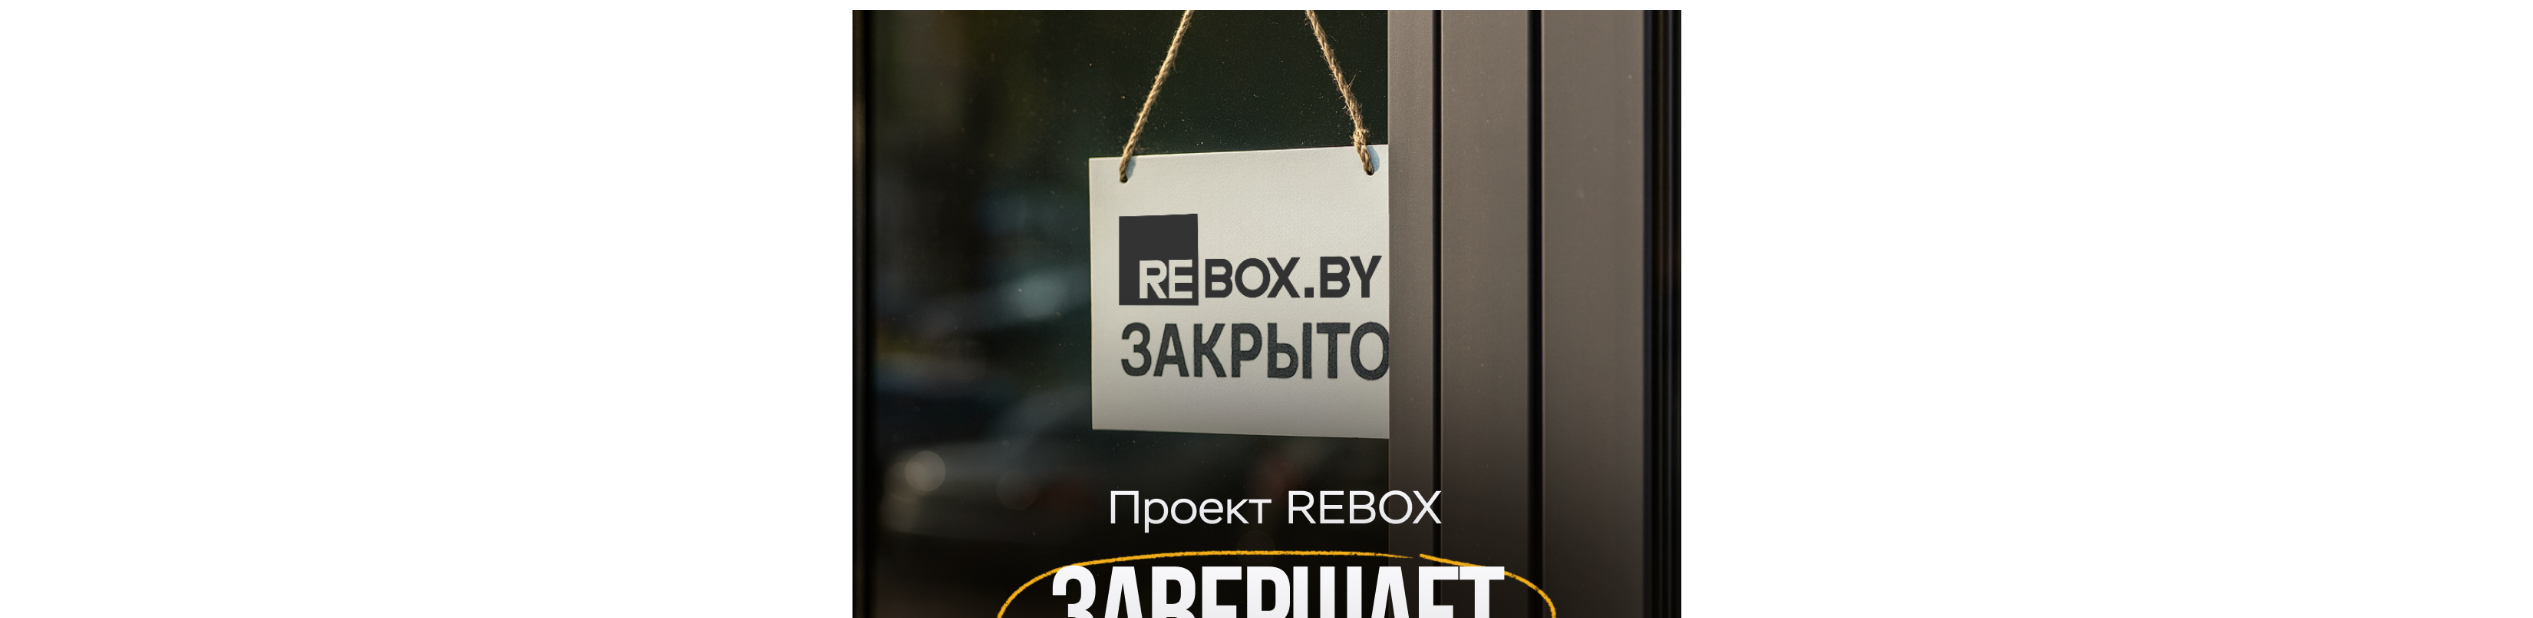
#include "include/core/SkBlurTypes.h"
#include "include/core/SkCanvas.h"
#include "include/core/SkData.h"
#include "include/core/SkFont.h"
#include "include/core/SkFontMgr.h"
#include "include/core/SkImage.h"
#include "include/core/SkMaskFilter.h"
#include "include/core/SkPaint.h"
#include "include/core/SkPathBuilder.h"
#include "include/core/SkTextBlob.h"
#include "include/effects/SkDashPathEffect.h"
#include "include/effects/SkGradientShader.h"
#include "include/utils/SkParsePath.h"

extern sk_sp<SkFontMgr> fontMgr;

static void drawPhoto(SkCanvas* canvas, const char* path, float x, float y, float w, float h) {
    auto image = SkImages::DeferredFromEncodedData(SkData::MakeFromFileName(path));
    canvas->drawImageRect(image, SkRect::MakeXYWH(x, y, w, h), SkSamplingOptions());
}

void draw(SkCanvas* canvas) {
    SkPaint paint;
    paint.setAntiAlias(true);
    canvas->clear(0xFFFFFFFF);
    drawPhoto(canvas, "assets/img1.png", 852, 10, 830, 608);
}
